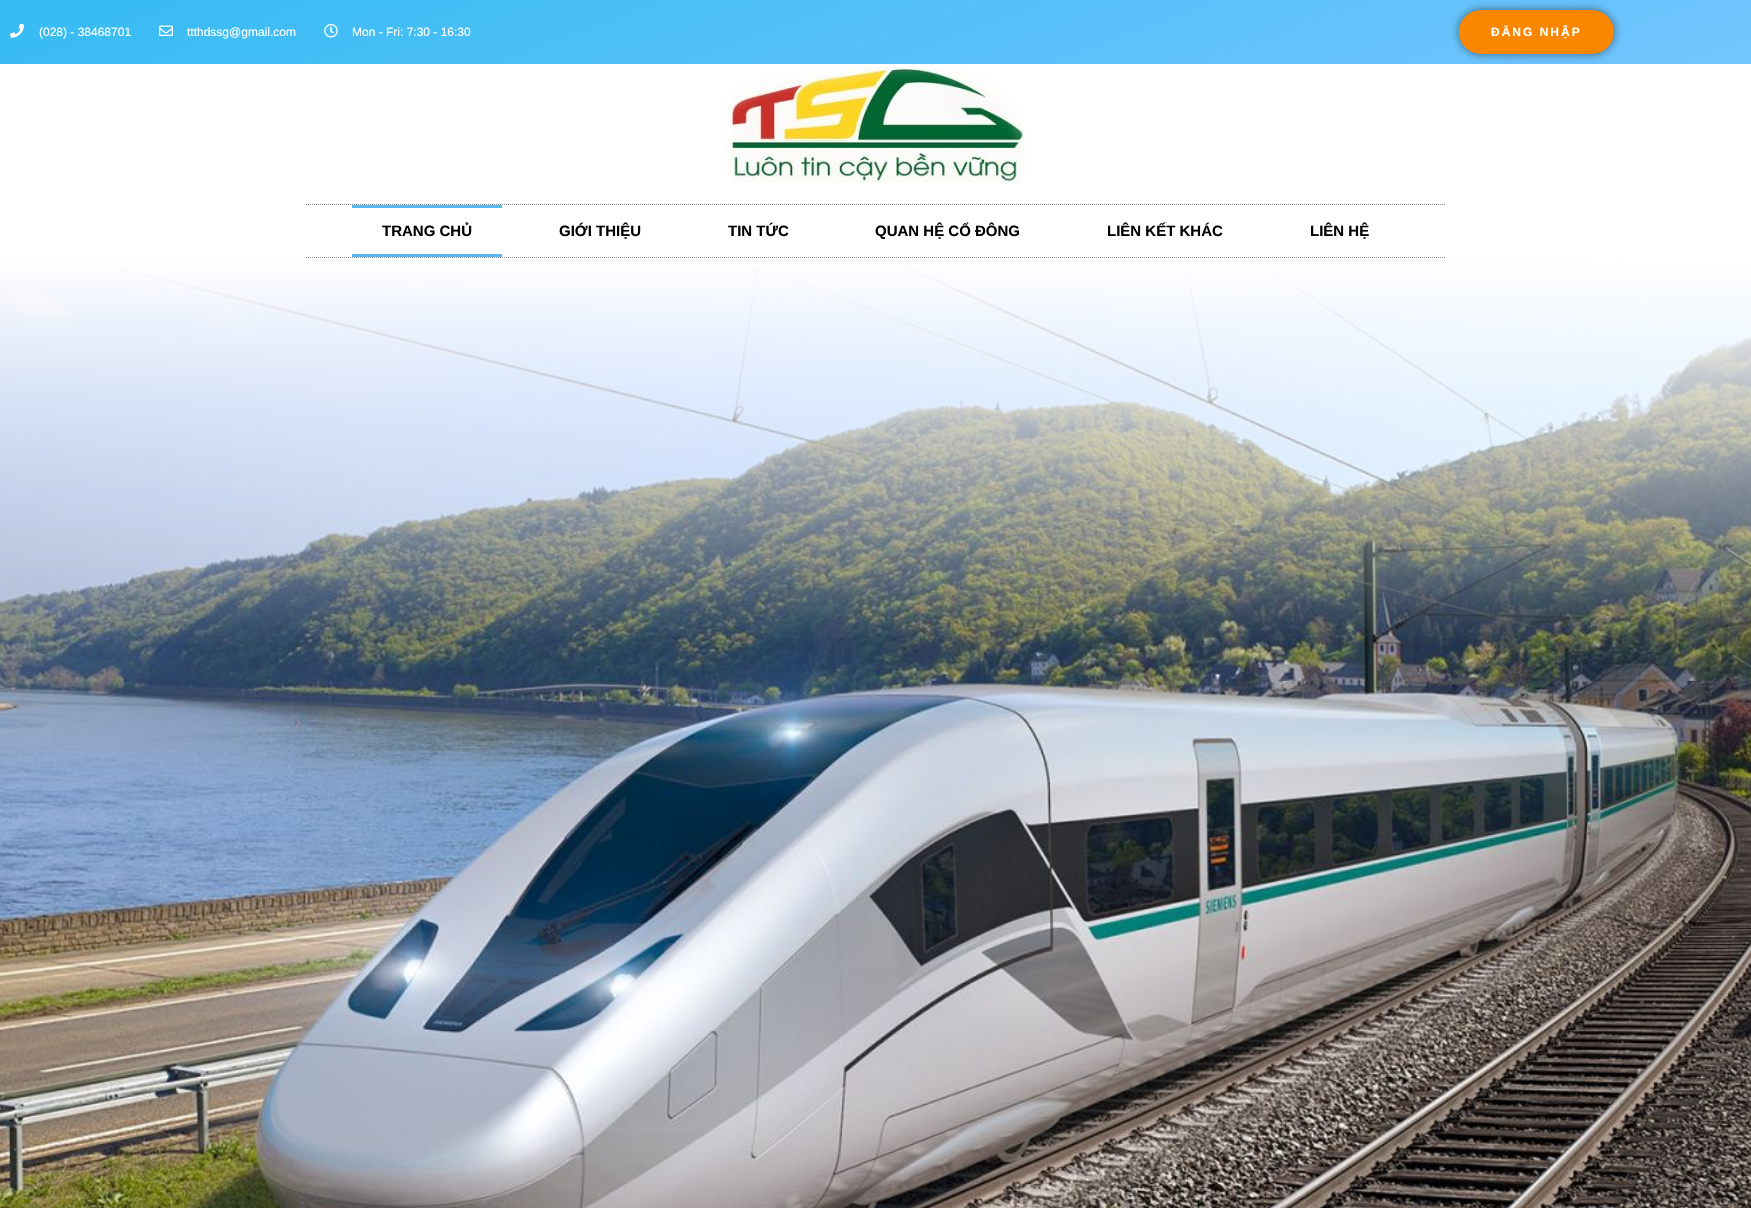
#include "include/core/SkBlurTypes.h"
#include "include/core/SkCanvas.h"
#include "include/core/SkData.h"
#include "include/core/SkFont.h"
#include "include/core/SkFontMgr.h"
#include "include/core/SkImage.h"
#include "include/core/SkMaskFilter.h"
#include "include/core/SkPaint.h"
#include "include/core/SkPathBuilder.h"
#include "include/core/SkTextBlob.h"
#include "include/effects/SkDashPathEffect.h"
#include "include/effects/SkGradientShader.h"
#include "include/utils/SkParsePath.h"

extern sk_sp<SkFontMgr> fontMgr;

static SkFont font(const char* family, int weight, float size, bool italic = false) {
    SkFontStyle style(weight, SkFontStyle::kNormal_Width,
        italic ? SkFontStyle::kItalic_Slant : SkFontStyle::kUpright_Slant);
    SkFont result(fontMgr->matchFamilyStyle(family, style), size);
    result.setSubpixel(true);
    return result;
}

static void drawLabel(SkCanvas* canvas, const char* s, float x, float y, const SkFont& font, SkColor color) {
    SkPaint ink(SkColor4f::FromColor(color));
    ink.setAntiAlias(true);
    canvas->drawString(s, x, y, font, ink);
}

static void drawTracked(SkCanvas* canvas, const char* s, float x, float y, const SkFont& font, const SkPaint& ink, float letter, float word) {
    std::vector<SkGlyphID> glyphs(font.countText(s, strlen(s), SkTextEncoding::kUTF8));
    std::vector<float> xs(glyphs.size());
    font.textToGlyphs(s, strlen(s), SkTextEncoding::kUTF8, glyphs);
    font.getXPos(glyphs, xs, x);
    float extra = 0;
    for (size_t i = 0; i < glyphs.size(); i++) {
        xs[i] += extra;
        extra += letter + word * (glyphs[i] == font.unicharToGlyph(' '));
    }
    canvas->drawTextBlob(SkTextBlob::MakeFromPosHGlyphs(glyphs, xs, y, font), 0, 0, ink);
}

static void fillRect(SkCanvas* canvas, float x, float y, float w, float h, SkColor color) {
    SkPaint ink(SkColor4f::FromColor(color));
    ink.setAntiAlias(true);
    canvas->drawRect(SkRect::MakeXYWH(x, y, w, h), ink);
}

static void fillRRect(SkCanvas* canvas, float x, float y, float w, float h, float radius, SkColor color) {
    SkPaint ink(SkColor4f::FromColor(color));
    ink.setAntiAlias(true);
    canvas->drawRoundRect(SkRect::MakeXYWH(x, y, w, h), radius, radius, ink);
}

static void drawPhoto(SkCanvas* canvas, const char* path, float x, float y, float w, float h) {
    auto image = SkImages::DeferredFromEncodedData(SkData::MakeFromFileName(path));
    canvas->drawImageRect(image, SkRect::MakeXYWH(x, y, w, h), SkSamplingOptions());
}

static SkPath parsePath(const char* data, bool evenOdd = false) {
    SkPath result = *SkParsePath::FromSVGString(data);
    if (evenOdd) result.setFillType(SkPathFillType::kEvenOdd);
    return result;
}

void draw(SkCanvas* canvas) {
    SkPaint paint;
    paint.setAntiAlias(true);
    canvas->clear(0xFFFFFFFF);
    {
        const SkColor colors[] = {0xFF34BBF2, 0xFF74C5FF};
        const float stops[] = {0, 1};
        const SkPoint ends[] = {{763, -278}, {988, 342}};
        paint.setShader(SkGradientShader::MakeLinear(ends, colors, stops, 2, SkTileMode::kClamp));
        paint.setAlpha(255);
    }
    canvas->drawRect(SkRect::MakeXYWH(0, 0, 1751, 64), paint);
    drawPhoto(canvas, "assets/img1.png", 10, 23, 14, 15);
    SkFont font1 = font("Liberation Sans", 400, 12);
    drawLabel(canvas, "(028) - 38468701", 39, 36, font1, 0xFFFFFFFF);
    drawPhoto(canvas, "assets/img2.png", 159, 25, 14, 11);
    drawLabel(canvas, "ttthdssg@gmail.com", 187, 36, font1, 0xFFFFFFFF);
    drawPhoto(canvas, "assets/img3.png", 324, 24, 14, 14);
    drawLabel(canvas, "Mon - Fri: 7:30 - 16:30", 352, 36, font1, 0xFFFFFFFF);
    paint.setShader(nullptr);
    paint.setColor(0x80000000);
    paint.setMaskFilter(SkMaskFilter::MakeBlur(kNormal_SkBlurStyle, 5));
    canvas->drawRoundRect(SkRect::MakeXYWH(1459, 10, 155, 44), 22, 22, paint);
    paint.setMaskFilter(nullptr);
    fillRRect(canvas, 1459, 10, 155, 44, 22, 0xFFFB8600);
    SkFont font2 = font("Liberation Sans", 700, 12);
    paint.setColor(0xFFFFFFFF);
    drawTracked(canvas, "ĐĂNG NHẬP", 1491, 36, font2, paint, 2, 0);
    drawPhoto(canvas, "assets/img4.png", 726, 64, 300, 120);
    paint.setStroke(true);
    paint.setStrokeWidth(1);
    paint.setColor(0xFF8E8E8E);
    paint.setPathEffect(SkDashPathEffect::Make({{1, 1}}, 0));
    canvas->drawPath(parsePath("M306 204.5H1446"), paint);
    paint.setPathEffect(nullptr);
    paint.setPathEffect(SkDashPathEffect::Make({{1, 1}}, 0));
    canvas->drawPath(parsePath("M306 257.5H1446"), paint);
    paint.setPathEffect(nullptr);
    fillRect(canvas, 352, 205, 150, 3, 0xFF59B8EF);
    SkFont font3 = font("Liberation Sans", 700, 15);
    drawLabel(canvas, "TRANG CHỦ", 382, 236, font3, 0xFF000000);
    fillRect(canvas, 352, 254, 150, 3, 0xFF59B8EF);
    drawLabel(canvas, "GIỚI THIỆU", 559, 236, font3, 0xFF000000);
    drawLabel(canvas, "TIN TỨC", 728, 236, font3, 0xFF000000);
    drawLabel(canvas, "QUAN HỆ CỔ ĐÔNG", 875, 236, font3, 0xFF000000);
    drawLabel(canvas, "LIÊN KẾT KHÁC", 1107, 236, font3, 0xFF000000);
    drawLabel(canvas, "LIÊN HỆ", 1310, 236, font3, 0xFF000000);
    drawPhoto(canvas, "assets/img5.png", 0, 258, 1751, 950);
}
